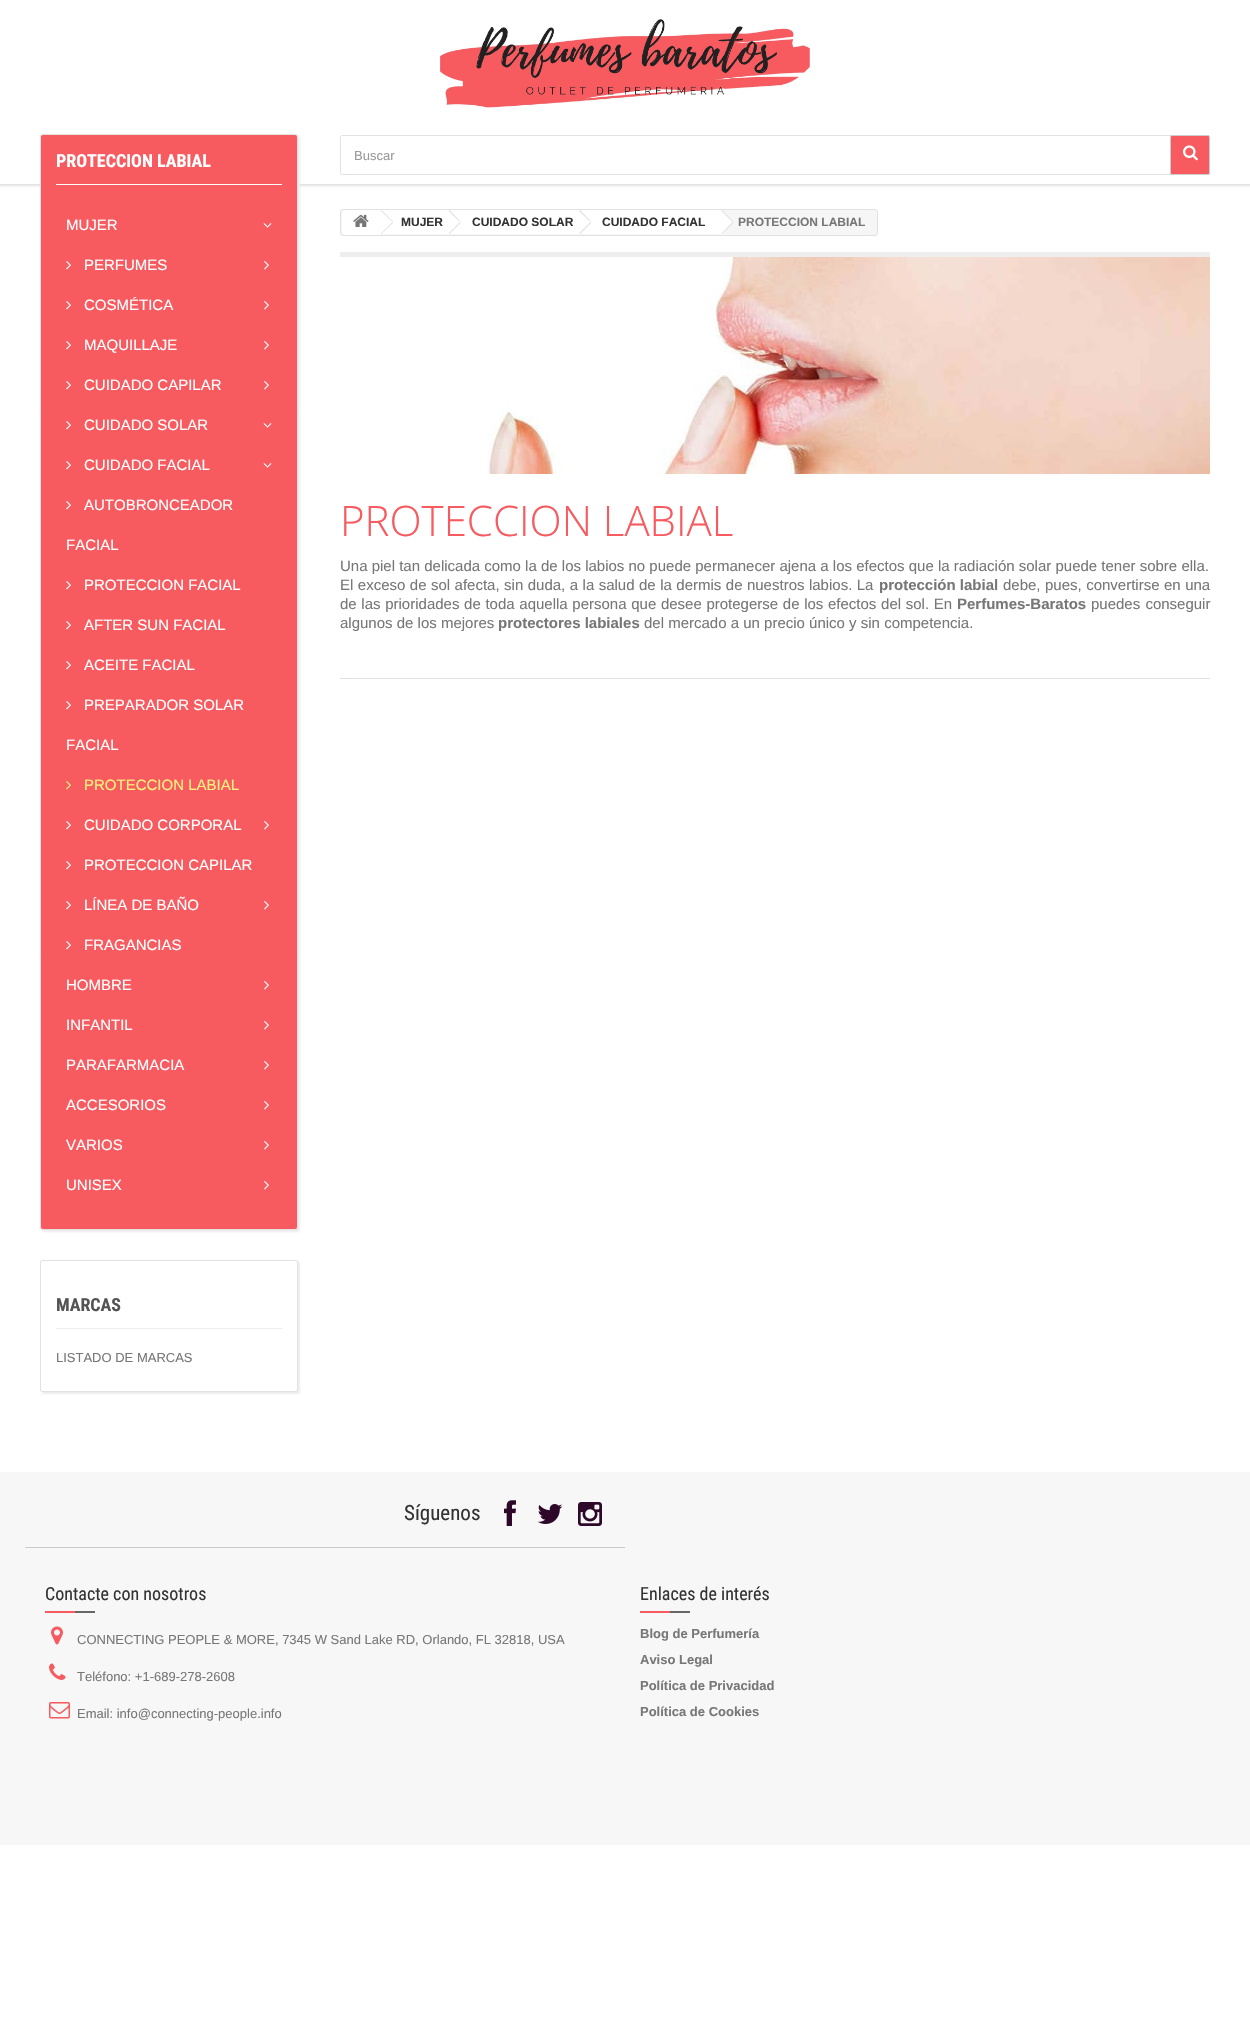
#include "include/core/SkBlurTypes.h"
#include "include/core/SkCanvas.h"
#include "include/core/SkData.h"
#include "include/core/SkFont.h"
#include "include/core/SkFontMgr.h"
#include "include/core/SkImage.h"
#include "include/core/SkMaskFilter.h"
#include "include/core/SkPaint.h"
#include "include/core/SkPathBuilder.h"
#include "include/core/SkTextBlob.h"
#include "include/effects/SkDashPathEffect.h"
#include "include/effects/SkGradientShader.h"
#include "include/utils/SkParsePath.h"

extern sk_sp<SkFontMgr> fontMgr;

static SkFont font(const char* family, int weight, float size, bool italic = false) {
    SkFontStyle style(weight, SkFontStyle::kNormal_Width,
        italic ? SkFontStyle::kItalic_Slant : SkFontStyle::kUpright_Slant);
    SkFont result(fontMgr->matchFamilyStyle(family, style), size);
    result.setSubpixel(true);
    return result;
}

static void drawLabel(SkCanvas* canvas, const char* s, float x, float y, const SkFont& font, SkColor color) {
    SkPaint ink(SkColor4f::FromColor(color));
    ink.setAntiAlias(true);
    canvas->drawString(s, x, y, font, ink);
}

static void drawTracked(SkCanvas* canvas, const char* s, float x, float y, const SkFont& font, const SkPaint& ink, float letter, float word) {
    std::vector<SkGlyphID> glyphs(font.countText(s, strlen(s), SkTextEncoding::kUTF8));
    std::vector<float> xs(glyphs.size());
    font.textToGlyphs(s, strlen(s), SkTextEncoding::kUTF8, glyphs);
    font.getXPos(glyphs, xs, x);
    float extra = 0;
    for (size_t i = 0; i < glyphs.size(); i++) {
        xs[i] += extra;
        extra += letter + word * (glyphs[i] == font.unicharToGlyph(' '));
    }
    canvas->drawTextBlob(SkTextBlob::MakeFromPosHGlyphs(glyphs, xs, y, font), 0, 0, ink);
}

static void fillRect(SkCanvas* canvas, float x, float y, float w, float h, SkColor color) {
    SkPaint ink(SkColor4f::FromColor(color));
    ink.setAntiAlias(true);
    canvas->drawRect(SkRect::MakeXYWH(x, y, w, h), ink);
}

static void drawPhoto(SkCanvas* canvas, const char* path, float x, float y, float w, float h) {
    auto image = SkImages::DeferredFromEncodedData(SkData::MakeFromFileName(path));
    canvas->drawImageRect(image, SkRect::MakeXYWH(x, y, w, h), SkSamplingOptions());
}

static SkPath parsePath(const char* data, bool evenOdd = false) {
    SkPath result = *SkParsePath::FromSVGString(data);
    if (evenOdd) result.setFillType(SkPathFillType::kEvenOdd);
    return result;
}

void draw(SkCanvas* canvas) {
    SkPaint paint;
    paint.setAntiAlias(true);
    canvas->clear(0xFFFFFFFF);
    canvas->save();
    canvas->clipRect(SkRect::MakeXYWH(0, 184, 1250, 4));
    paint.setColor(0xFFE3E1E1);
    paint.setMaskFilter(SkMaskFilter::MakeBlur(kNormal_SkBlurStyle, 1));
    canvas->drawRect(SkRect::MakeXYWH(-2, -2, 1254, 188), paint);
    paint.setMaskFilter(nullptr);
    canvas->restore();
    drawPhoto(canvas, "assets/img1.png", 440, 19, 370, 89);
    paint.setStroke(true);
    paint.setStrokeWidth(1);
    canvas->drawRoundRect(SkRect::MakeXYWH(340.5f, 135.5f, 869, 39), 1.5f, 1.5f, paint);
    SkFont font1 = font("Liberation Sans", 400, 13);
    drawLabel(canvas, "Buscar", 354, 160, font1, 0xFF999999);
    paint.setStroke(false);
    paint.setColor(0xFFF75B60);
    canvas->drawRoundRect(SkRect::MakeXYWH(1170.5f, 135.5f, 39, 39), 1.5f, 1.5f, paint);
    paint.setStroke(true);
    paint.setColor(0xFFCCCCCC);
    canvas->drawRoundRect(SkRect::MakeXYWH(1170.5f, 135.5f, 39, 39), 1.5f, 1.5f, paint);
    drawPhoto(canvas, "assets/img2.png", 1183, 145, 15, 16);
    paint.setStroke(false);
    paint.setColor(0xFFECECEC);
    paint.setMaskFilter(SkMaskFilter::MakeBlur(kNormal_SkBlurStyle, 1));
    canvas->drawRoundRect(SkRect::MakeXYWH(42, 136, 258, 1096), 3, 3, paint);
    paint.setMaskFilter(nullptr);
    paint.setColor(0xFFF75B60);
    canvas->drawRoundRect(SkRect::MakeXYWH(40.5f, 134.5f, 257, 1095), 2.5f, 2.5f, paint);
    paint.setStroke(true);
    paint.setColor(0xFFE3E1E1);
    canvas->drawRoundRect(SkRect::MakeXYWH(40.5f, 134.5f, 257, 1095), 2.5f, 2.5f, paint);
    fillRect(canvas, 56, 184, 226, 1, 0xFFFFFFFF);
    SkFont font2 = font("Roboto Condensed", 700, 18);
    drawLabel(canvas, "PROTECCION LABIAL", 56, 167, font2, 0xFFFFFFFF);
    SkFont font3 = font("Liberation Sans", 400, 15);
    drawLabel(canvas, "MUJER", 66, 230, font3, 0xFFFFFFFF);
    drawPhoto(canvas, "assets/img3.png", 263, 223, 9, 5);
    drawPhoto(canvas, "assets/img4.png", 66, 261, 5, 9);
    drawLabel(canvas, "PERFUMES", 84, 270, font3, 0xFFFFFFFF);
    drawPhoto(canvas, "assets/img4.png", 264, 261, 5, 9);
    drawPhoto(canvas, "assets/img4.png", 66, 301, 5, 9);
    drawLabel(canvas, "COSMÉTICA", 84, 310, font3, 0xFFFFFFFF);
    drawPhoto(canvas, "assets/img4.png", 264, 301, 5, 9);
    drawPhoto(canvas, "assets/img4.png", 66, 341, 5, 9);
    drawLabel(canvas, "MAQUILLAJE", 84, 350, font3, 0xFFFFFFFF);
    drawPhoto(canvas, "assets/img4.png", 264, 341, 5, 9);
    drawPhoto(canvas, "assets/img4.png", 66, 381, 5, 9);
    drawLabel(canvas, "CUIDADO CAPILAR", 84, 390, font3, 0xFFFFFFFF);
    drawPhoto(canvas, "assets/img4.png", 264, 381, 5, 9);
    drawPhoto(canvas, "assets/img4.png", 66, 421, 5, 9);
    drawLabel(canvas, "CUIDADO SOLAR", 84, 430, font3, 0xFFFFFFFF);
    drawPhoto(canvas, "assets/img3.png", 263, 423, 9, 5);
    drawPhoto(canvas, "assets/img4.png", 66, 461, 5, 9);
    drawLabel(canvas, "CUIDADO FACIAL", 84, 470, font3, 0xFFFFFFFF);
    drawPhoto(canvas, "assets/img3.png", 263, 463, 9, 5);
    drawPhoto(canvas, "assets/img4.png", 66, 501, 5, 9);
    drawLabel(canvas, "AUTOBRONCEADOR", 84, 510, font3, 0xFFFFFFFF);
    drawLabel(canvas, "FACIAL", 66, 550, font3, 0xFFFFFFFF);
    drawPhoto(canvas, "assets/img4.png", 66, 581, 5, 9);
    drawLabel(canvas, "PROTECCION FACIAL", 84, 590, font3, 0xFFFFFFFF);
    drawPhoto(canvas, "assets/img4.png", 66, 621, 5, 9);
    drawLabel(canvas, "AFTER SUN FACIAL", 84, 630, font3, 0xFFFFFFFF);
    drawPhoto(canvas, "assets/img4.png", 66, 661, 5, 9);
    drawLabel(canvas, "ACEITE FACIAL", 84, 670, font3, 0xFFFFFFFF);
    drawPhoto(canvas, "assets/img4.png", 66, 701, 5, 9);
    drawLabel(canvas, "PREPARADOR SOLAR", 84, 710, font3, 0xFFFFFFFF);
    drawLabel(canvas, "FACIAL", 66, 750, font3, 0xFFFFFFFF);
    drawPhoto(canvas, "assets/img5.png", 66, 781, 5, 9);
    drawLabel(canvas, "PROTECCION LABIAL", 84, 790, font3, 0xFFF9F27E);
    drawPhoto(canvas, "assets/img4.png", 66, 821, 5, 9);
    drawLabel(canvas, "CUIDADO CORPORAL", 84, 830, font3, 0xFFFFFFFF);
    drawPhoto(canvas, "assets/img4.png", 264, 821, 5, 9);
    drawPhoto(canvas, "assets/img4.png", 66, 861, 5, 9);
    drawLabel(canvas, "PROTECCION CAPILAR", 84, 870, font3, 0xFFFFFFFF);
    drawPhoto(canvas, "assets/img4.png", 66, 901, 5, 9);
    drawLabel(canvas, "LÍNEA DE BAÑO", 84, 910, font3, 0xFFFFFFFF);
    drawPhoto(canvas, "assets/img4.png", 264, 901, 5, 9);
    drawPhoto(canvas, "assets/img4.png", 66, 941, 5, 9);
    drawLabel(canvas, "FRAGANCIAS", 84, 950, font3, 0xFFFFFFFF);
    drawLabel(canvas, "HOMBRE", 66, 990, font3, 0xFFFFFFFF);
    drawPhoto(canvas, "assets/img4.png", 264, 981, 5, 9);
    drawLabel(canvas, "INFANTIL", 66, 1030, font3, 0xFFFFFFFF);
    drawPhoto(canvas, "assets/img4.png", 264, 1021, 5, 9);
    drawLabel(canvas, "PARAFARMACIA", 66, 1070, font3, 0xFFFFFFFF);
    drawPhoto(canvas, "assets/img4.png", 264, 1061, 5, 9);
    drawLabel(canvas, "ACCESORIOS", 66, 1110, font3, 0xFFFFFFFF);
    drawPhoto(canvas, "assets/img4.png", 264, 1101, 5, 9);
    drawLabel(canvas, "VARIOS", 66, 1150, font3, 0xFFFFFFFF);
    drawPhoto(canvas, "assets/img4.png", 264, 1141, 5, 9);
    drawLabel(canvas, "UNISEX", 66, 1190, font3, 0xFFFFFFFF);
    drawPhoto(canvas, "assets/img4.png", 264, 1181, 5, 9);
    canvas->save();
    canvas->clipPath(parsePath("M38 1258H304V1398H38ZM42 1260H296C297 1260 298 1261 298 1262V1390C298 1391 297 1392 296 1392H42C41 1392 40 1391 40 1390V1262C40 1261 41 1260 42 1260Z", true), true);
    paint.setStroke(false);
    paint.setColor(0xFFECECEC);
    paint.setMaskFilter(SkMaskFilter::MakeBlur(kNormal_SkBlurStyle, 1));
    canvas->drawRoundRect(SkRect::MakeXYWH(42, 1262, 258, 132), 2, 2, paint);
    paint.setMaskFilter(nullptr);
    canvas->restore();
    paint.setStroke(true);
    paint.setColor(0xFFE3E1E1);
    canvas->drawRoundRect(SkRect::MakeXYWH(40.5f, 1260.5f, 257, 131), 1.5f, 1.5f, paint);
    fillRect(canvas, 56, 1328, 226, 1, 0xFFEEEEEE);
    drawLabel(canvas, "MARCAS", 56, 1311, font2, 0xFF555454);
    drawLabel(canvas, "LISTADO DE MARCAS", 56, 1362, font1, 0xFF777777);
    paint.setStroke(false);
    paint.setColor(0xFFF6F6F6);
    canvas->drawRoundRect(SkRect::MakeXYWH(340.5f, 209.5f, 537, 26), 2.5f, 2.5f, paint);
    paint.setStroke(true);
    paint.setColor(0xFFE3E1E1);
    canvas->drawRoundRect(SkRect::MakeXYWH(340.5f, 209.5f, 537, 26), 2.5f, 2.5f, paint);
    paint.setStroke(false);
    paint.setColor(0xFFFFFFFF);
    canvas->drawPath(parsePath("M345 210H380V235H345C343.5 235 342 233.5 342 232V213C342 211.5 343.5 210 345 210Z"), paint);
    drawPhoto(canvas, "assets/img6.png", 353, 214, 16, 13);
    fillRect(canvas, 380, 210, 70, 24, 0xFFFFFFFF);
    paint.setColor(0xFFE3E1E1);
    canvas->drawPath(parsePath("M381.5 210L393 221.5L392.5 222L381 211ZM392.5 222L393 223L381.5 234L381 233.5Z"), paint);
    SkFont font4 = font("Liberation Sans", 700, 12);
    drawLabel(canvas, "MUJER", 401, 226, font4, 0xFF333333);
    paint.setColor(0xFFFFFFFF);
    canvas->drawPath(parsePath("M460 211L470 221C471 221.5 471 223 470 223.5L460 233.5C459.5 234.5 458 234.5 457.5 233.5L447.5 223.5C446.5 223 446.5 221.5 447.5 221L457.5 211C458 210 459.5 210 460 211Z"), paint);
    fillRect(canvas, 450, 210, 130, 24, 0xFFFFFFFF);
    paint.setColor(0xFFE3E1E1);
    canvas->drawPath(parsePath("M449.5 210L460.5 221.5L460 222L448.5 211ZM460 222L460.5 223L449.5 234L448.5 233.5Z"), paint);
    drawLabel(canvas, "CUIDADO SOLAR", 472, 226, font4, 0xFF333333);
    paint.setColor(0xFFFFFFFF);
    canvas->drawPath(parsePath("M590.5 211L600.5 221C601 221.5 601 223 600.5 223.5L590.5 233.5C589.5 234.5 588.5 234.5 587.5 233.5L577.5 223.5C577 223 577 221.5 577.5 221L587.5 211C588.5 210 589.5 210 590.5 211Z"), paint);
    fillRect(canvas, 580, 210, 140, 24, 0xFFFFFFFF);
    paint.setColor(0xFFE3E1E1);
    canvas->drawPath(parsePath("M580 210L591 221.5L590.5 222L579 211ZM590.5 222L591 223L580 234L579 233.5Z"), paint);
    drawLabel(canvas, "CUIDADO FACIAL", 602, 226, font4, 0xFF333333);
    paint.setColor(0xFFFFFFFF);
    canvas->drawPath(parsePath("M723 211L732.5 221C733.5 221.5 733.5 223 732.5 223.5L723 233.5C722 234.5 720.5 234.5 720 233.5L710 223.5C709.5 223 709.5 221.5 710 221L720 211C720.5 210 722 210 723 211Z"), paint);
    paint.setColor(0xFFE3E1E1);
    canvas->drawPath(parsePath("M722 210L733.5 221.5L732.5 222L721.5 211ZM732.5 222L733.5 223L722 234L721.5 233.5Z"), paint);
    drawLabel(canvas, "PROTECCION LABIAL", 738, 226, font4, 0xFF777777);
    fillRect(canvas, 340, 252, 870, 5, 0xFFEEEEEE);
    drawPhoto(canvas, "assets/img7.png", 488, 257, 722, 217);
    SkFont font5 = font("Open Sans", 300, 42);
    drawLabel(canvas, "PROTECCION LABIAL", 340, 536, font5, 0xFFF75B60);
    drawLabel(canvas, "Una piel tan delicada como la de los labios no puede permanecer ajena a los efectos que la radiación solar puede tener sobre ella.", 340, 571, font3, 0xFF777777);
    paint.setColor(0xFF777777);
    drawTracked(canvas, "El exceso de sol afecta, sin duda, a la salud de la dermis de nuestros labios. La", 340, 590, font3, paint, 0, 0.3f);
    SkFont font6 = font("Liberation Sans", 700, 15);
    drawLabel(canvas, "protección labial", 879, 590, font6, 0xFF777777);
    drawTracked(canvas, "debe, pues, convertirse en una", 1003, 590, font3, paint, 0, 0.3f);
    drawTracked(canvas, "de las prioridades de toda aquella persona que desee protegerse de los efectos del sol. En", 340, 609, font3, paint, 0, 0.5f);
    drawLabel(canvas, "Perfumes-Baratos", 957, 609, font6, 0xFF777777);
    drawTracked(canvas, "puedes conseguir", 1091, 609, font3, paint, 0, 1);
    drawLabel(canvas, "algunos de los mejores", 340, 628, font3, 0xFF777777);
    drawLabel(canvas, "protectores labiales", 498, 628, font6, 0xFF777777);
    drawLabel(canvas, "del mercado a un precio único y sin competencia.", 644, 628, font3, 0xFF777777);
    fillRect(canvas, 340, 678, 870, 1, 0xFFE3E1E1);
    fillRect(canvas, 0, 1472, 1250, 373, 0xFFF7F7F7);
    fillRect(canvas, 25, 1547, 600, 1, 0xFFCCCCCC);
    SkFont font7 = font("Roboto Condensed", 400, 21);
    drawLabel(canvas, "Síguenos", 404, 1520, font7, 0xFF333333);
    drawPhoto(canvas, "assets/img8.png", 504, 1500, 12, 26);
    drawPhoto(canvas, "assets/img9.png", 537, 1504, 26, 20);
    drawPhoto(canvas, "assets/img10.png", 578, 1502, 24, 24);
    SkFont font8 = font("Roboto Condensed", 400, 18);
    drawLabel(canvas, "Contacte con nosotros", 45, 1600, font8, 0xFF333333);
    fillRect(canvas, 45, 1611, 30, 2, 0xFFF75B60);
    fillRect(canvas, 75, 1611, 20, 2, 0xFF676767);
    drawPhoto(canvas, "assets/img11.png", 51, 1626, 12, 19);
    drawLabel(canvas, "CONNECTING PEOPLE & MORE, 7345 W Sand Lake RD, Orlando, FL 32818, USA", 77, 1644, font1, 0xFF777777);
    drawPhoto(canvas, "assets/img12.png", 49, 1663, 17, 17);
    drawLabel(canvas, "Teléfono: +1-689-278-2608", 77, 1681, font1, 0xFF777777);
    drawPhoto(canvas, "assets/img13.png", 49, 1702, 21, 17);
    drawLabel(canvas, "Email: info@connecting-people.info", 77, 1718, font1, 0xFF777777);
    drawLabel(canvas, "Enlaces de interés", 640, 1600, font8, 0xFF333333);
    fillRect(canvas, 640, 1611, 30, 2, 0xFFF75B60);
    fillRect(canvas, 670, 1611, 20, 2, 0xFF676767);
    SkFont font9 = font("Liberation Sans", 700, 13);
    drawLabel(canvas, "Blog de Perfumería", 640, 1638, font9, 0xFF777777);
    drawLabel(canvas, "Aviso Legal", 640, 1664, font9, 0xFF777777);
    drawLabel(canvas, "Política de Privacidad", 640, 1690, font9, 0xFF777777);
    drawLabel(canvas, "Política de Cookies", 640, 1716, font9, 0xFF777777);
}
